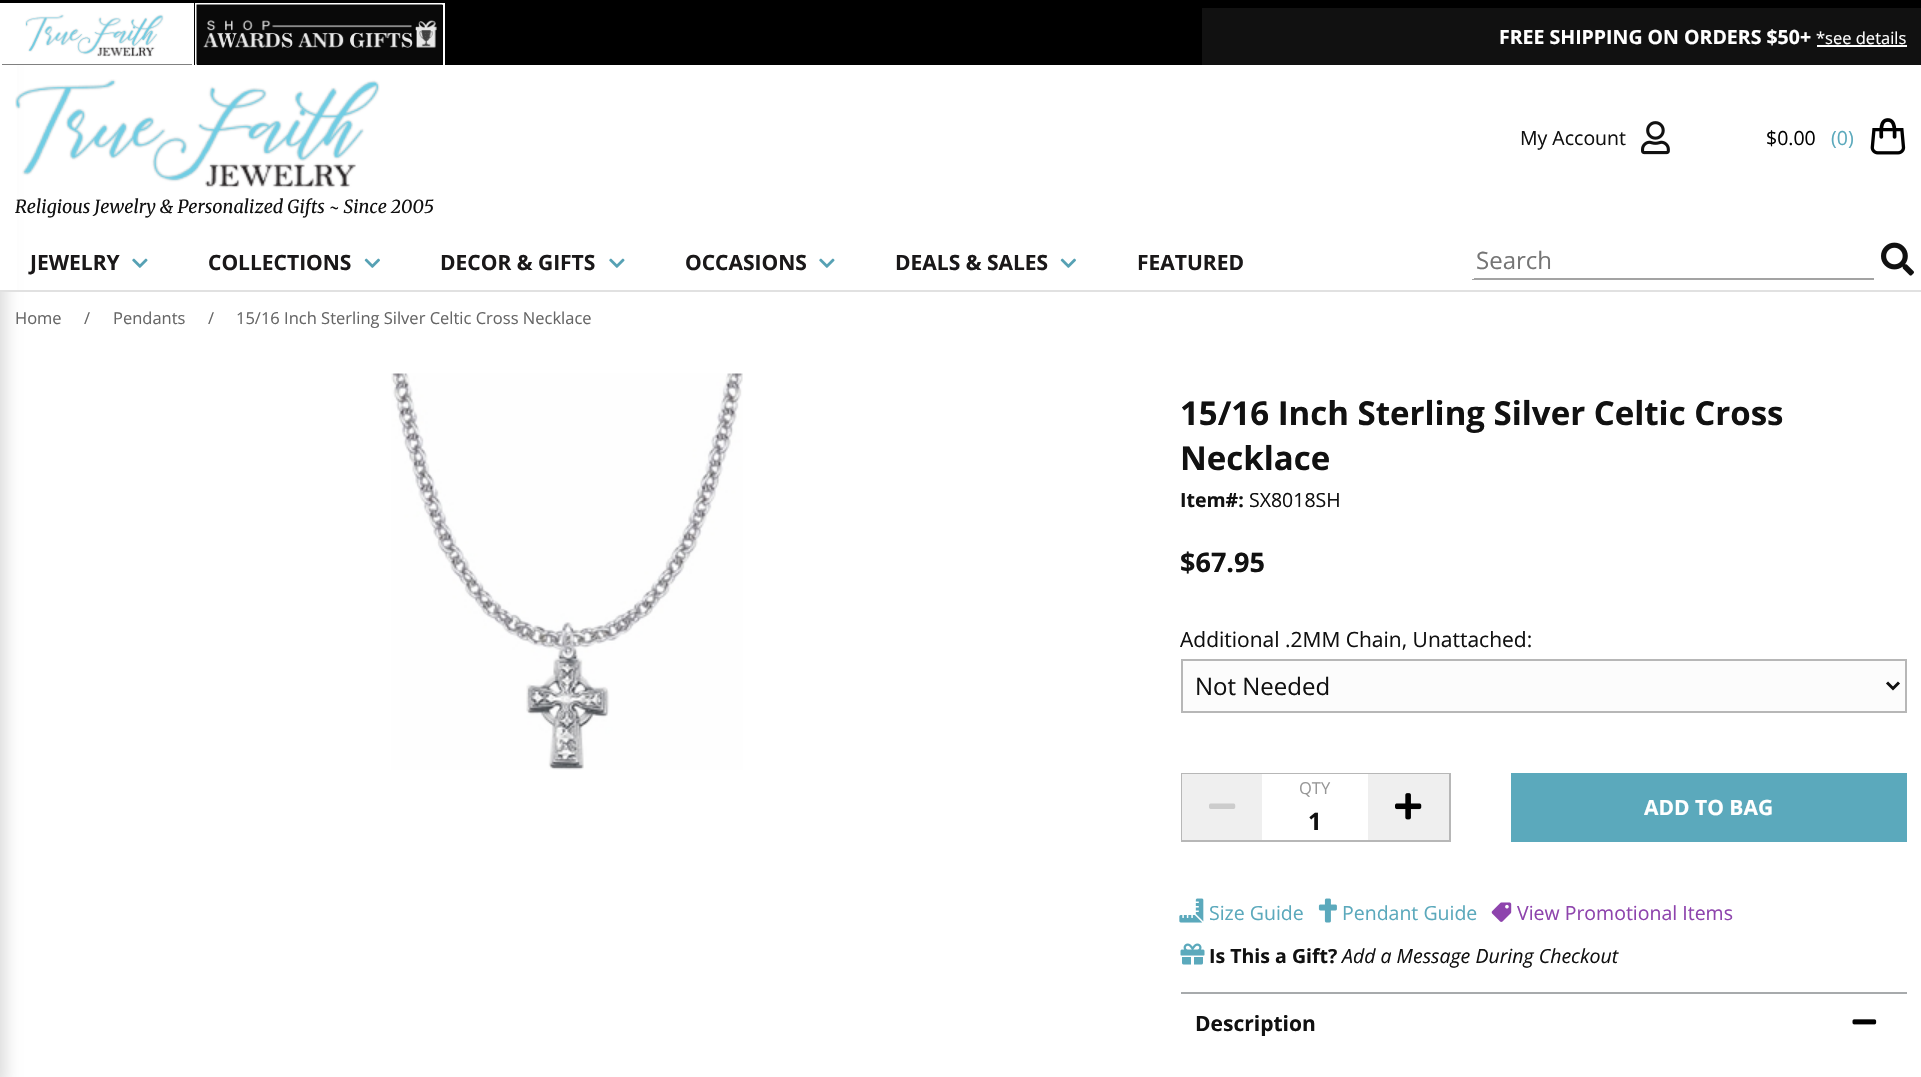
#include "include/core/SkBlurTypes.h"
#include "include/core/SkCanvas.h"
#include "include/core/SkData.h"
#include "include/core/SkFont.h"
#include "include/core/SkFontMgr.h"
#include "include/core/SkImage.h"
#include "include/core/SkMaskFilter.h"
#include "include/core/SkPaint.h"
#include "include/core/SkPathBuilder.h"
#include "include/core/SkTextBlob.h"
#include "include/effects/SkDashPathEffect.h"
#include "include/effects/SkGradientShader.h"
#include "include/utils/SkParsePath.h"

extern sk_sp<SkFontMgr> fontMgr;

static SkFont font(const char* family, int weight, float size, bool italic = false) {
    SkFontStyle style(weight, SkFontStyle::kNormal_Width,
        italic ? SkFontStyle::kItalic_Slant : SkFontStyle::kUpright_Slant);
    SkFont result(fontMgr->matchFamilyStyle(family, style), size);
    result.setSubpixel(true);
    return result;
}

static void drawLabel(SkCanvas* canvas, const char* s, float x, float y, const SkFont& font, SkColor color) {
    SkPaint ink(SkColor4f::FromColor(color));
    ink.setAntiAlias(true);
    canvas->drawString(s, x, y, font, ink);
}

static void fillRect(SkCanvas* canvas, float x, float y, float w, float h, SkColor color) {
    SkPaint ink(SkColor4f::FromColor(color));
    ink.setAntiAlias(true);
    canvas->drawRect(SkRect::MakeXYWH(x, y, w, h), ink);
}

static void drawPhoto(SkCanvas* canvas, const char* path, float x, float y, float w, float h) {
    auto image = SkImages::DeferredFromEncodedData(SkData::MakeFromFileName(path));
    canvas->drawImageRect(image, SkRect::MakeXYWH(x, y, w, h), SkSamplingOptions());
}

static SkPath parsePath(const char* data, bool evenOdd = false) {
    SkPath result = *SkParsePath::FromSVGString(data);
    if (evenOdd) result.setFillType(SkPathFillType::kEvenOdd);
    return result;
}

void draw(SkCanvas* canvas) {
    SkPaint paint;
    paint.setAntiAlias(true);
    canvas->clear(0xFFFFFFFF);
    paint.setColor(0xFFDDDDDD);
    paint.setMaskFilter(SkMaskFilter::MakeBlur(kNormal_SkBlurStyle, 7.5f));
    canvas->drawRect(SkRect::MakeXYWH(-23, 9, 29, 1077), paint);
    paint.setMaskFilter(nullptr);
    fillRect(canvas, 0, 65, 17, 225, 0xFFFFFFFF);
    fillRect(canvas, 0, 290, 1921, 2, 0xFFE1E1E1);
    fillRect(canvas, 0, 0, 1921, 65, 0xFF000000);
    fillRect(canvas, 0, 3, 194, 2, 0xFFFFFFFF);
    fillRect(canvas, 192, 3, 2, 62, 0xFFFFFFFF);
    fillRect(canvas, 0, 3, 2, 62, 0xFFFFFFFF);
    drawPhoto(canvas, "assets/img1.png", 2, 5, 190, 60);
    fillRect(canvas, 195, 3, 249, 2, 0xFFFFFFFF);
    fillRect(canvas, 443, 3, 2, 62, 0xFFFFFFFF);
    fillRect(canvas, 195, 3, 2, 62, 0xFFFFFFFF);
    drawPhoto(canvas, "assets/img2.png", 196, 4, 247, 61);
    fillRect(canvas, 1202, 8, 719, 57, 0xFF111111);
    SkFont font1 = font("Open Sans", 700, 19.5f);
    drawLabel(canvas, "FREE SHIPPING ON ORDERS $50+", 1499, 44, font1, 0xFFFFFFFF);
    SkFont font2 = font("Open Sans", 400, 16.5f);
    drawLabel(canvas, "*see details", 1816, 44, font2, 0xFFFFFFFF);
    fillRect(canvas, 1817, 45, 90, 2, 0xFFFFFFFF);
    SkFont font3 = font("Open Sans", 400, 19.5f);
    drawLabel(canvas, "My Account", 1520, 145, font3, 0xFF111111);
    drawPhoto(canvas, "assets/img3.png", 1641, 121, 29, 34);
    drawLabel(canvas, "$0.00", 1766, 145, font3, 0xFF030303);
    drawLabel(canvas, "(0)", 1831, 145, font3, 0xFF5BA9BC);
    drawPhoto(canvas, "assets/img4.png", 1870, 118, 36, 37);
    drawPhoto(canvas, "assets/img5.png", 15, 79, 365, 109);
    SkFont font4 = font("Merriweather", 400, 18, true);
    drawLabel(canvas, "Religious Jewelry & Personalized Gifts ~ Since 2005", 15, 213, font4, 0xFF111111);
    SkFont font5 = font("Open Sans", 700, 21);
    drawLabel(canvas, "JEWELRY", 30, 270, font5, 0xFF1A1819);
    drawPhoto(canvas, "assets/img6.png", 132, 258, 16, 10);
    drawLabel(canvas, "COLLECTIONS", 208, 270, font5, 0xFF1A1819);
    drawPhoto(canvas, "assets/img7.png", 364, 258, 16, 10);
    drawLabel(canvas, "DECOR & GIFTS", 440, 270, font5, 0xFF1A1819);
    drawPhoto(canvas, "assets/img6.png", 609, 258, 16, 10);
    drawLabel(canvas, "OCCASIONS", 685, 270, font5, 0xFF1A1819);
    drawPhoto(canvas, "assets/img6.png", 819, 258, 16, 10);
    drawLabel(canvas, "DEALS & SALES", 895, 270, font5, 0xFF1A1819);
    drawPhoto(canvas, "assets/img7.png", 1060, 258, 16, 10);
    drawLabel(canvas, "FEATURED", 1137, 270, font5, 0xFF1A1819);
    fillRect(canvas, 1472, 278, 402, 2, 0xFFA3A3A3);
    fillRect(canvas, 1472, 278, 2, 1, 0xFFFFFFFF);
    SkFont font6 = font("Open Sans", 400, 24);
    drawLabel(canvas, "Search", 1476, 269, font6, 0xFF757575);
    drawPhoto(canvas, "assets/img8.png", 1881, 242, 33, 34);
    drawLabel(canvas, "Home", 15, 324, font2, 0xFF666666);
    drawLabel(canvas, "/", 84, 324, font2, 0xFF666666);
    drawLabel(canvas, "Pendants", 113, 324, font2, 0xFF666666);
    drawLabel(canvas, "/", 208, 324, font2, 0xFF666666);
    drawLabel(canvas, "15/16 Inch Sterling Silver Celtic Cross Necklace", 236, 324, font2, 0xFF666666);
    drawPhoto(canvas, "assets/img9.png", 391, 373, 352, 397);
    SkFont font7 = font("Open Sans", 700, 33);
    drawLabel(canvas, "15/16 Inch Sterling Silver Celtic Cross", 1180, 425, font7, 0xFF111111);
    drawLabel(canvas, "Necklace", 1180, 470, font7, 0xFF111111);
    drawLabel(canvas, "Item#:", 1180, 507, font1, 0xFF111111);
    drawLabel(canvas, "SX8018SH", 1249, 507, font3, 0xFF111111);
    SkFont font8 = font("Open Sans", 700, 27);
    drawLabel(canvas, "$67.95", 1180, 572, font8, 0xFF111111);
    SkFont font9 = font("Open Sans", 400, 21);
    drawLabel(canvas, "Additional .2MM Chain, Unattached:", 1180, 647, font9, 0xFF111111);
    paint.setColor(0xFFFCFCFC);
    canvas->drawRect(SkRect::MakeXYWH(1182, 660, 724, 52), paint);
    paint.setStroke(true);
    paint.setStrokeWidth(2);
    paint.setColor(0xFFB7B7B7);
    canvas->drawRect(SkRect::MakeXYWH(1182, 660, 724, 52), paint);
    paint.setStrokeWidth(3);
    paint.setColor(0xFF111111);
    canvas->drawPath(parsePath("M1887 682.5L1893 688.5L1899 682.5"), paint);
    drawLabel(canvas, "Not Needed", 1195, 695, font6, 0xFF111111);
    paint.setStrokeWidth(2);
    paint.setColor(0xFFB7B7B7);
    canvas->drawRect(SkRect::MakeXYWH(1182, 774, 268, 67), paint);
    fillRect(canvas, 1182, 774, 80, 66, 0xFFEFEFEF);
    drawPhoto(canvas, "assets/img10.png", 1209, 803, 27, 6);
    fillRect(canvas, 1262, 774, 106, 1, 0xFFFFFFFF);
    drawLabel(canvas, "QTY", 1299, 794, font2, 0xFF979797);
    SkFont font10 = font("Open Sans", 700, 24);
    drawLabel(canvas, "1", 1308, 830, font10, 0xFF111111);
    fillRect(canvas, 1368, 774, 81, 66, 0xFFEFEFEF);
    drawPhoto(canvas, "assets/img11.png", 1395, 793, 27, 27);
    fillRect(canvas, 1511, 773, 396, 69, 0xFF5BA9BC);
    drawLabel(canvas, "ADD TO BAG", 1644, 815, font5, 0xFFFFFFFF);
    drawPhoto(canvas, "assets/img12.png", 1179, 898, 25, 25);
    drawLabel(canvas, "Size Guide", 1209, 920, font3, 0xFF5BA9BC);
    drawPhoto(canvas, "assets/img13.png", 1318, 898, 19, 25);
    drawLabel(canvas, "Pendant Guide", 1342, 920, font3, 0xFF5BA9BC);
    drawPhoto(canvas, "assets/img14.png", 1491, 902, 21, 20);
    drawLabel(canvas, "View Promotional Items", 1517, 920, font3, 0xFF8E44AD);
    drawPhoto(canvas, "assets/img15.png", 1180, 943, 25, 22);
    drawLabel(canvas, "Is This a Gift?", 1209, 963, font1, 0xFF111111);
    SkFont font11 = font("Open Sans", 400, 19.5f, true);
    drawLabel(canvas, "Add a Message During Checkout", 1342, 963, font11, 0xFF111111);
    fillRect(canvas, 1181, 992, 726, 2, 0xFFA7AAAC);
    drawLabel(canvas, "Description", 1195, 1031, font5, 0xFF111111);
    drawPhoto(canvas, "assets/img16.png", 1852, 1019, 25, 6);
}
